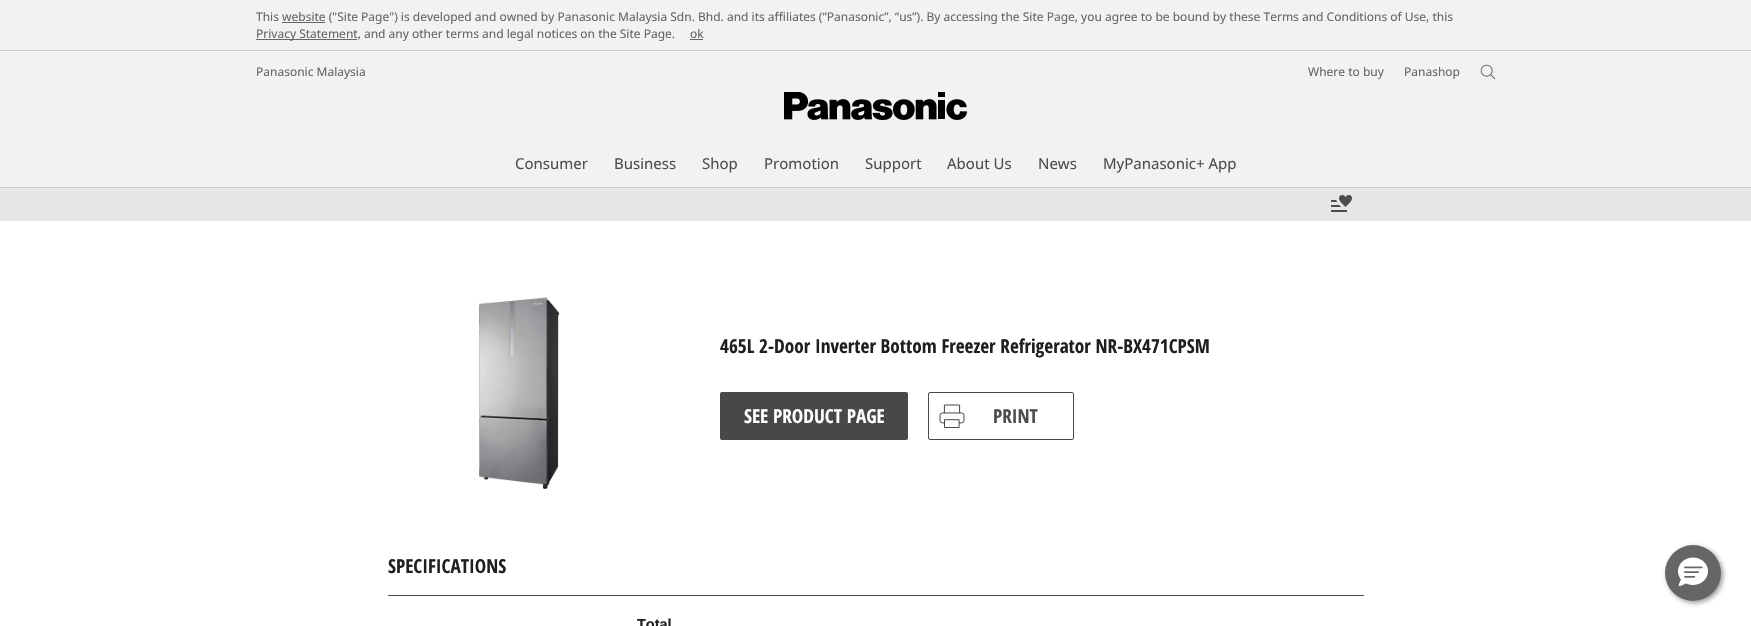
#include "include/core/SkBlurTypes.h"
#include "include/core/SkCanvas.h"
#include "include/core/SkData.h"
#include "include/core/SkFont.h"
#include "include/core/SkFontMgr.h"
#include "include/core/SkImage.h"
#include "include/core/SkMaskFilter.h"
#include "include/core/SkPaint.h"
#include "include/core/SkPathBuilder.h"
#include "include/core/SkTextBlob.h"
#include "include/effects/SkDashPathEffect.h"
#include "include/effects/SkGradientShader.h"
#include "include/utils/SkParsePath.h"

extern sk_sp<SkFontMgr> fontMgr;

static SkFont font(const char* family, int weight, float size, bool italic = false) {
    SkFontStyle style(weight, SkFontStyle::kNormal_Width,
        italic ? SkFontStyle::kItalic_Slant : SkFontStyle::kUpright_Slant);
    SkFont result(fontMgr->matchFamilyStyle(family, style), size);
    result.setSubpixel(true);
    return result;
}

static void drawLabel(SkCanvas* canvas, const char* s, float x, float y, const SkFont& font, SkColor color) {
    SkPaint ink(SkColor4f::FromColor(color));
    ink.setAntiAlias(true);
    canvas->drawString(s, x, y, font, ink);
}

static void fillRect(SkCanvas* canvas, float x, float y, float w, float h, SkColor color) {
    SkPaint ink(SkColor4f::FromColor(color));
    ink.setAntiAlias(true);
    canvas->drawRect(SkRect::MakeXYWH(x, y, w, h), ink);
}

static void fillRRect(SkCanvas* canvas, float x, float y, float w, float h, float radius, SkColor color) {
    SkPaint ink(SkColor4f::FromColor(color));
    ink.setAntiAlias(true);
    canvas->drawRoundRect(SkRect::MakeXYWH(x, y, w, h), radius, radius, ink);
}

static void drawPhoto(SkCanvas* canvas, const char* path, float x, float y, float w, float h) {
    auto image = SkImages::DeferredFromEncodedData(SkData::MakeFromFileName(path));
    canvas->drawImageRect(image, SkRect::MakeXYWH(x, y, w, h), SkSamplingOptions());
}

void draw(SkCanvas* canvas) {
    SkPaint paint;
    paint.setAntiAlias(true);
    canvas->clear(0xFFF2F2F2);
    fillRect(canvas, 0, 50, 1751, 1, 0xFFCCCCCC);
    SkFont font1 = font("Noto Sans", 400, 12);
    drawLabel(canvas, "This website (\"Site Page\") is developed and owned by Panasonic Malaysia Sdn. Bhd. and its affiliates (“Panasonic”, “us”). By accessing the Site Page, you agree to be bound by these Terms and Conditions of Use, this", 256, 21, font1, 0xFF666666);
    fillRect(canvas, 282, 22, 43, 1, 0xFF666666);
    fillRect(canvas, 256, 39, 101, 1, 0xFF666666);
    drawLabel(canvas, "Privacy Statement, and any other terms and legal notices on the Site Page.", 256, 38, font1, 0xFF666666);
    drawLabel(canvas, "ok", 690, 38, font1, 0xFF666666);
    fillRect(canvas, 690, 39, 13, 1, 0xFF666666);
    drawLabel(canvas, "Panasonic Malaysia", 256, 76, font1, 0xFF666666);
    drawLabel(canvas, "Where to buy", 1308, 76, font1, 0xFF666666);
    drawLabel(canvas, "Panashop", 1404, 76, font1, 0xFF666666);
    drawPhoto(canvas, "assets/img1.png", 1480, 64, 16, 16);
    drawPhoto(canvas, "assets/img2.png", 784, 92, 183, 28);
    SkFont font2 = font("Noto Sans", 400, 15);
    drawLabel(canvas, "Consumer", 515, 169, font2, 0xFF4D4D4D);
    drawLabel(canvas, "Business", 614, 169, font2, 0xFF4D4D4D);
    drawLabel(canvas, "Shop", 702, 169, font2, 0xFF4D4D4D);
    drawLabel(canvas, "Promotion", 764, 169, font2, 0xFF4D4D4D);
    drawLabel(canvas, "Support", 865, 169, font2, 0xFF4D4D4D);
    drawLabel(canvas, "About Us", 947, 169, font2, 0xFF4D4D4D);
    drawLabel(canvas, "News", 1038, 169, font2, 0xFF4D4D4D);
    drawLabel(canvas, "MyPanasonic+ App", 1103, 169, font2, 0xFF4D4D4D);
    fillRect(canvas, 0, 188, 1751, 33, 0xFFE6E6E6);
    fillRect(canvas, 0, 187, 1751, 1, 0xFFCCCCCC);
    drawPhoto(canvas, "assets/img4.png", 1331, 200, 16, 12);
    drawPhoto(canvas, "assets/img3.png", 1339, 195, 13, 12);
    fillRect(canvas, 0, 221, 1751, 405, 0xFFFFFFFF);
    drawPhoto(canvas, "assets/img5.png", 479, 297, 81, 192);
    SkFont font3 = font("Open Sans Condensed", 700, 19.2f);
    drawLabel(canvas, "465L 2-Door Inverter Bottom Freezer Refrigerator NR-BX471CPSM", 720, 353, font3, 0xFF1F1F1F);
    fillRRect(canvas, 720, 392, 188, 48, 2, 0xFF484848);
    drawLabel(canvas, "SEE PRODUCT PAGE", 744, 423, font3, 0xFFFFFFFF);
    paint.setStroke(true);
    paint.setStrokeWidth(1);
    paint.setColor(0xFF484848);
    canvas->drawRoundRect(SkRect::MakeXYWH(928.5f, 392.5f, 145, 47), 1.5f, 1.5f, paint);
    drawPhoto(canvas, "assets/img6.png", 939, 404, 26, 24);
    drawLabel(canvas, "PRINT", 993, 423, font3, 0xFF4D4D4D);
    fillRect(canvas, 388, 595, 976, 1, 0xFF484848);
    drawLabel(canvas, "SPECIFICATIONS", 388, 573, font3, 0xFF1F1F1F);
    SkFont font4 = font("Liberation Sans", 700, 14.5f);
    drawLabel(canvas, "Total", 637, 629, font4, 0xFF1F1F1F);
    paint.setStroke(false);
    paint.setColor(0x802D2D2D);
    paint.setMaskFilter(SkMaskFilter::MakeBlur(kNormal_SkBlurStyle, 2.5f));
    canvas->drawRoundRect(SkRect::MakeXYWH(1667, 547, 56, 56), 28, 28, paint);
    paint.setMaskFilter(nullptr);
    paint.setColor(0xFF666666);
    canvas->drawCircle(1693, 573, 28, paint);
    drawPhoto(canvas, "assets/img7.png", 1678, 557, 30, 29);
}
